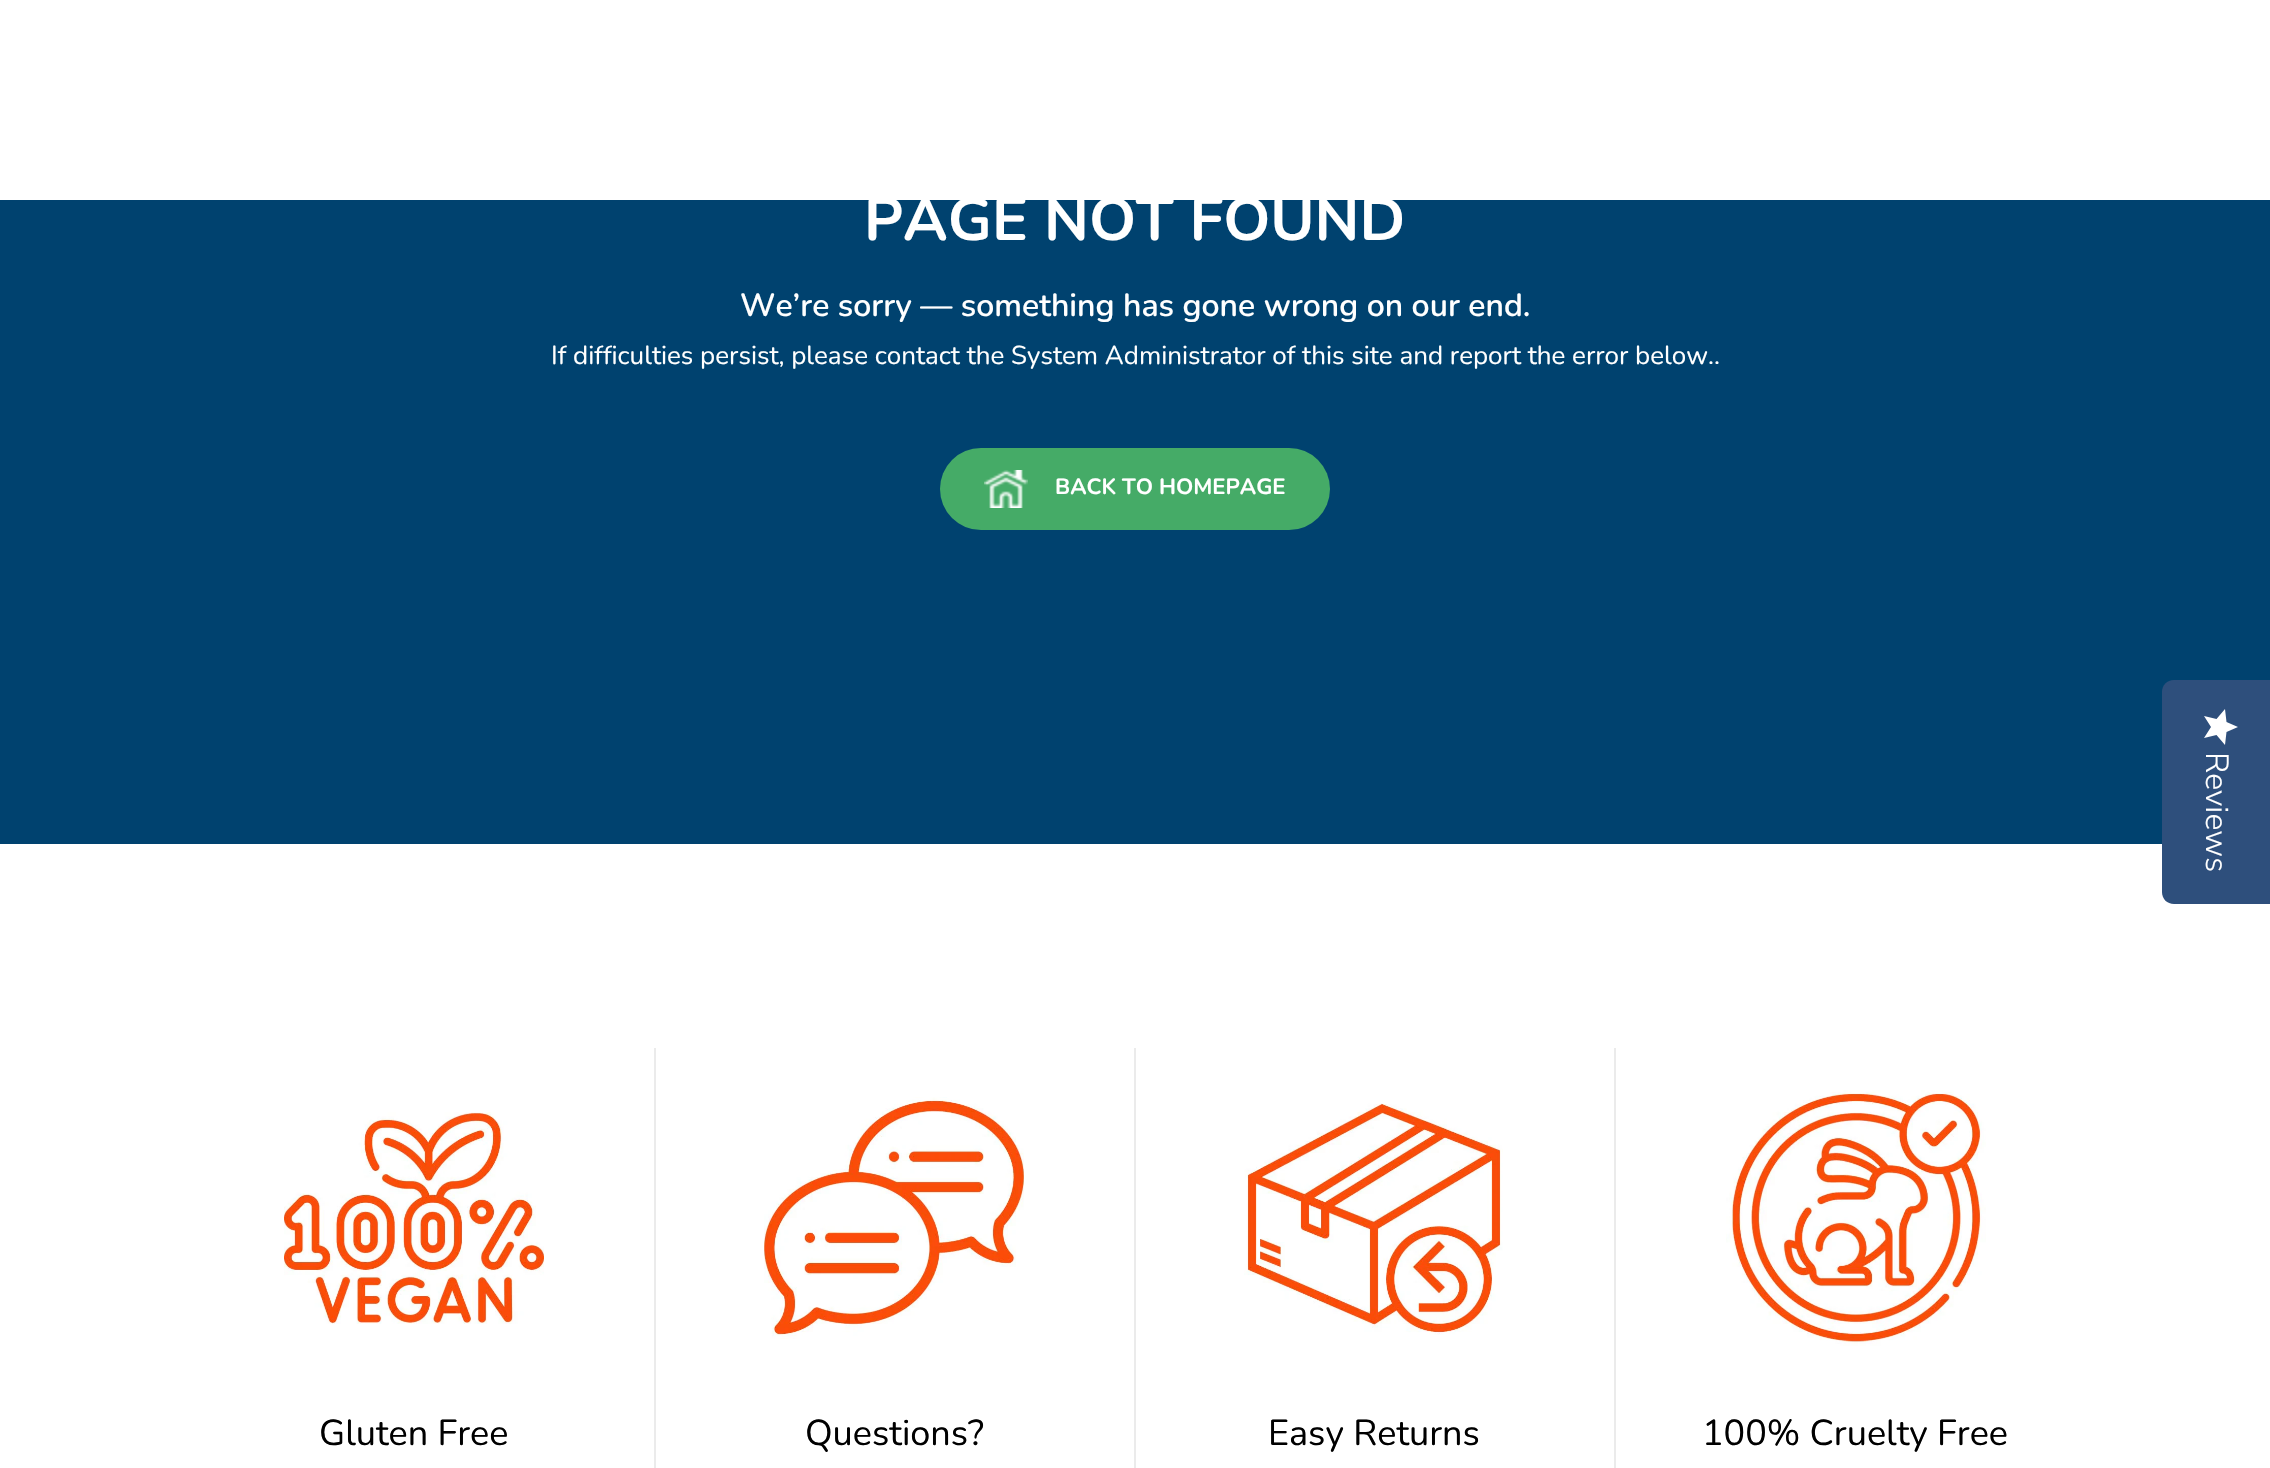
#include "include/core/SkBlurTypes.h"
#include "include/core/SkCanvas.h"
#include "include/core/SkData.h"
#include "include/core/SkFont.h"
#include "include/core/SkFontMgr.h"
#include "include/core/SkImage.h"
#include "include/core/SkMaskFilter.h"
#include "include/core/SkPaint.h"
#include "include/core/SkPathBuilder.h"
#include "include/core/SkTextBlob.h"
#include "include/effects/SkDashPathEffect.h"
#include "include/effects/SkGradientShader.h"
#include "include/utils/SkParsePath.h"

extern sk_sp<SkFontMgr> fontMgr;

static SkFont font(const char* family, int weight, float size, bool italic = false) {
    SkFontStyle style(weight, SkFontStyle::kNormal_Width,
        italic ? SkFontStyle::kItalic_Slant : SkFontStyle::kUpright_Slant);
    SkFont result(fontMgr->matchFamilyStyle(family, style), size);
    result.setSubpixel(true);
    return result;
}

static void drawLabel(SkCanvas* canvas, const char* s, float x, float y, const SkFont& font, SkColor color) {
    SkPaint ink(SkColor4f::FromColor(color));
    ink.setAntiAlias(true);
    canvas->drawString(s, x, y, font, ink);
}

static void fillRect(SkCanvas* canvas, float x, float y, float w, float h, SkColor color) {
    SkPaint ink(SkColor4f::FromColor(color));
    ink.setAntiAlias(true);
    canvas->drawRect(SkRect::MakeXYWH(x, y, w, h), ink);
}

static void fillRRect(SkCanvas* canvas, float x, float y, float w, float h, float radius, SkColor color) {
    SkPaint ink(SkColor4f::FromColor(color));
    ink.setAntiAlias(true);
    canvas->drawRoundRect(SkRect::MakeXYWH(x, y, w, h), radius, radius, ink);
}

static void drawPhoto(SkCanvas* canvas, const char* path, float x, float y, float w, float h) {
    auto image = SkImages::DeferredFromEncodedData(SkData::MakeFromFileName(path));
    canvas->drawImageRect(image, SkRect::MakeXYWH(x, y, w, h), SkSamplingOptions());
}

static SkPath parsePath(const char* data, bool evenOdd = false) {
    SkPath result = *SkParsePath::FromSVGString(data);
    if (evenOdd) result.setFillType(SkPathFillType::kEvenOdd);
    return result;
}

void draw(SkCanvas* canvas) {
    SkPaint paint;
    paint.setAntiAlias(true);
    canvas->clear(0xFFFFFFFF);
    fillRect(canvas, 0, 200, 2270, 644, 0xFF00426F);
    SkFont font1 = font("Nunito", 700, 60);
    drawLabel(canvas, "PAGE NOT FOUND", 864, 240, font1, 0xFFFFFFFF);
    SkFont font2 = font("Nunito", 600, 32);
    drawLabel(canvas, "We’re sorry — something has gone wrong on our end.", 740, 316, font2, 0xFFFFFFFF);
    SkFont font3 = font("Nunito", 400, 26);
    drawLabel(canvas, "If difficulties persist, please contact the System Administrator of this site and report the error below..", 551, 364, font3, 0xFFFFFFFF);
    fillRRect(canvas, 940, 448, 390, 82, 41, 0xFF45AB67);
    drawPhoto(canvas, "assets/img1.png", 984, 470, 44, 38);
    SkFont font4 = font("Nunito", 700, 22);
    drawLabel(canvas, "BACK TO HOMEPAGE", 1055, 494, font4, 0xFFFFFFFF);
    fillRect(canvas, 654, 1048, 2, 420, 0xFFEBEBEB);
    drawPhoto(canvas, "assets/img2.png", 284, 1112, 260, 212);
    SkFont font5 = font("Nunito", 400, 36);
    drawLabel(canvas, "Gluten Free", 319, 1445, font5, 0xFF000000);
    fillRect(canvas, 1134, 1048, 2, 420, 0xFFEBEBEB);
    drawPhoto(canvas, "assets/img3.png", 764, 1097, 260, 242);
    drawLabel(canvas, "Questions?", 805, 1445, font5, 0xFF000000);
    fillRect(canvas, 1614, 1048, 2, 420, 0xFFEBEBEB);
    drawPhoto(canvas, "assets/img4.png", 1244, 1103, 259, 232);
    drawLabel(canvas, "Easy Returns", 1268, 1445, font5, 0xFF000000);
    drawPhoto(canvas, "assets/img5.png", 1726, 1090, 260, 256);
    drawLabel(canvas, "100% Cruelty Free", 1702, 1445, font5, 0xFF000000);
    paint.setColor(0xFF2E4F7C);
    canvas->drawPath(parsePath("M2270 680V904H2174C2167 904 2162 899 2162 892V692C2162 685 2167 680 2174 680Z"), paint);
    {
        const SkColor colors[] = {0xFFFFFFFF, 0xFFEAEAEA};
        const float stops[] = {1, 1};
        const SkPoint ends[] = {{2238, 709}, {2238, 745}};
        paint.setShader(SkGradientShader::MakeLinear(ends, colors, stops, 2, SkTileMode::kClamp));
        paint.setAlpha(255);
    }
    canvas->drawPath(parsePath("M2211 727L2204 738L2216.5 735L2225 745L2226.5 732L2238 727L2226.5 722L2225 709L2216.5 719L2204 716Z"), paint);
    SkFont font6 = font("Nunito Sans", 300, 32);
    canvas->save();
    canvas->rotate(90, 2206, 752);
    drawLabel(canvas, "Reviews", 2206, 752, font6, 0xFFFFFFFF);
    canvas->restore();
}
